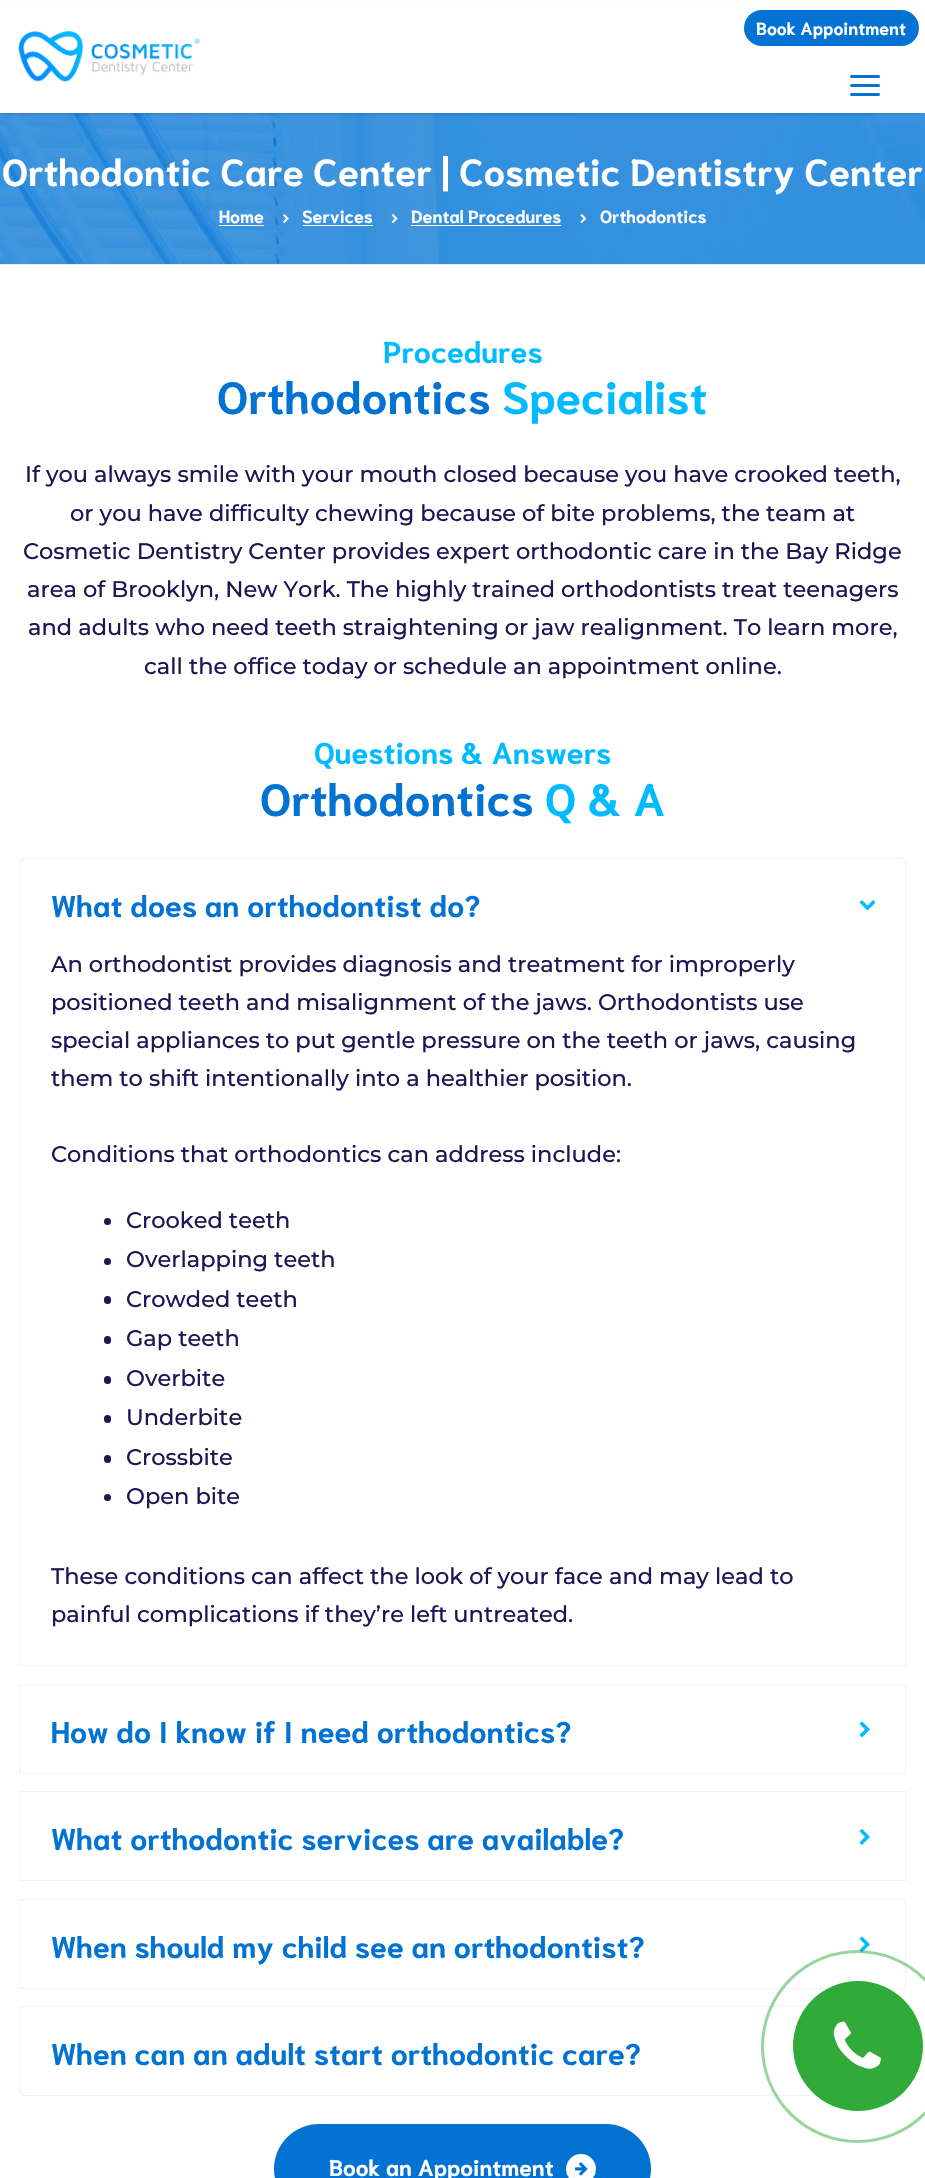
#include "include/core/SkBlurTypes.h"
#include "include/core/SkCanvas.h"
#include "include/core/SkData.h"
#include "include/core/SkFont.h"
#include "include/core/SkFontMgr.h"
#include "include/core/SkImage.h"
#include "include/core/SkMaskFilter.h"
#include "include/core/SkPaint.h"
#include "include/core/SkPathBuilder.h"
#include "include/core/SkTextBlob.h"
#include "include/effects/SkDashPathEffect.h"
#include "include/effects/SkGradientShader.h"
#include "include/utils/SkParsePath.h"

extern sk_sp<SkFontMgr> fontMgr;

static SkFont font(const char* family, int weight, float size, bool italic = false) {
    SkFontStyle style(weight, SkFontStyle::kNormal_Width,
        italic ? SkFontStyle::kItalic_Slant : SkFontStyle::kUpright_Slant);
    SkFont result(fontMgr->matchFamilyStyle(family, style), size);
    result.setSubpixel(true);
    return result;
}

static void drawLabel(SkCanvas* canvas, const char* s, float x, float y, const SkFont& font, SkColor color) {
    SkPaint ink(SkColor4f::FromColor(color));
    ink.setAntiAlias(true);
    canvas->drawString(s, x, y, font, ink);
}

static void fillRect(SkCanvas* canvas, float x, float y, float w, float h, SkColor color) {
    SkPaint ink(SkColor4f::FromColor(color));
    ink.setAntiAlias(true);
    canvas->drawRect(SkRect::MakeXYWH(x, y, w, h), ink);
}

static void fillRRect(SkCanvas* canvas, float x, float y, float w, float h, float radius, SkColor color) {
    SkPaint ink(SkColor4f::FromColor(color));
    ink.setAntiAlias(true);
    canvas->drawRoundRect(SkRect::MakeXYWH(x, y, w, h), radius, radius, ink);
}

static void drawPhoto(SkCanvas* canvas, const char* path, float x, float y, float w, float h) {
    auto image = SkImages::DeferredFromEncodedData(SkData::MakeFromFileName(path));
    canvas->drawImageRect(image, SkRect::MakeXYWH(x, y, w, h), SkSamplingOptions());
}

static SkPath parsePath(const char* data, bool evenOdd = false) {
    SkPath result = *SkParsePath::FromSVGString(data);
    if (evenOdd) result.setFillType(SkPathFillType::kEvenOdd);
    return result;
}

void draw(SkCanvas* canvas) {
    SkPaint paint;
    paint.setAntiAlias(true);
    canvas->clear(0xFFFFFFFF);
    drawPhoto(canvas, "assets/img2.png", 0, 113, 925, 151);
    paint.setColor(0x4D000000);
    paint.setMaskFilter(SkMaskFilter::MakeBlur(kNormal_SkBlurStyle, 2));
    canvas->drawRect(SkRect::MakeXYWH(4, 8, 917, 105), paint);
    paint.setMaskFilter(nullptr);
    fillRect(canvas, 0, 4, 925, 109, 0xFFFFFFFF);
    drawPhoto(canvas, "assets/img1.png", 18, 31, 182, 51);
    fillRRect(canvas, 744, 10, 175, 36, 18, 0xFF0373D3);
    SkFont font1 = font("Niramit", 700, 17.5f);
    drawLabel(canvas, "Book Appointment", 756, 35, font1, 0xFFFFFFFF);
    fillRRect(canvas, 850, 75, 30, 3, 1.5f, 0xFF0373D3);
    fillRRect(canvas, 850, 84, 30, 3, 1.5f, 0xFF0373D3);
    fillRRect(canvas, 850, 93, 30, 3, 1.5f, 0xFF0373D3);
    fillRect(canvas, 0, 264, 925, 1, 0xFFEEEEEE);
    SkFont font2 = font("Niramit", 700, 37.5f);
    drawLabel(canvas, "Orthodontic Care Center | Cosmetic Dentistry Center", 2, 186, font2, 0xFFFFFFFF);
    drawLabel(canvas, "Home", 219, 223, font1, 0xFFFFFFFF);
    fillRect(canvas, 219, 225, 45, 1, 0xFFFFFFFF);
    drawPhoto(canvas, "assets/img3.png", 283, 214, 6, 9);
    drawLabel(canvas, "Services", 302, 223, font1, 0xFFFFFFFF);
    fillRect(canvas, 303, 225, 70, 1, 0xFFFFFFFF);
    drawPhoto(canvas, "assets/img4.png", 391, 214, 7, 9);
    drawLabel(canvas, "Dental Procedures", 411, 223, font1, 0xFFFFFFFF);
    fillRect(canvas, 411, 225, 150, 1, 0xFFFFFFFF);
    drawPhoto(canvas, "assets/img5.png", 580, 214, 7, 9);
    drawLabel(canvas, "Orthodontics", 600, 223, font1, 0xFFFFFFFF);
    SkFont font3 = font("Niramit", 700, 30);
    drawLabel(canvas, "Procedures", 383, 363, font3, 0xFF00BBFF);
    SkFont font4 = font("Niramit", 700, 45);
    drawLabel(canvas, "Orthodontics", 217, 414, font4, 0xFF0373D3);
    drawLabel(canvas, "Specialist", 502, 414, font4, 0xFF00BBFF);
    SkFont font5 = font("Montserrat", 500, 22.5f);
    drawLabel(canvas, "If you always smile with your mouth closed because you have crooked teeth,", 25, 482, font5, 0xFF1C1655);
    drawLabel(canvas, "or you have difficulty chewing because of bite problems, the team at", 70, 521, font5, 0xFF1C1655);
    drawLabel(canvas, "Cosmetic Dentistry Center provides expert orthodontic care in the Bay Ridge", 23, 559, font5, 0xFF1C1655);
    drawLabel(canvas, "area of Brooklyn, New York. The highly trained orthodontists treat teenagers", 27, 597, font5, 0xFF1C1655);
    drawLabel(canvas, "and adults who need teeth straightening or jaw realignment. To learn more,", 28, 635, font5, 0xFF1C1655);
    drawLabel(canvas, "call the office today or schedule an appointment online.", 144, 674, font5, 0xFF1C1655);
    drawLabel(canvas, "Questions & Answers", 314, 764, font3, 0xFF00BBFF);
    drawLabel(canvas, "Orthodontics", 260, 816, font4, 0xFF0373D3);
    drawLabel(canvas, "Q & A", 545, 816, font4, 0xFF00BBFF);
    paint.setColor(0xFFEDF3F6);
    canvas->drawPath(parsePath("M25 858H900C903 858 906 860 906 864V946H19V864C19 860 22 858 25 858ZM25 859H900C903 859 905 861 905 864V946H20V864C20 861 22 859 25 859Z", true), paint);
    drawLabel(canvas, "What does an orthodontist do?", 51, 917, font3, 0xFF0373D3);
    drawPhoto(canvas, "assets/img6.png", 859, 900, 17, 11);
    fillRect(canvas, 905, 945, 1, 721, 0xFFEDF3F6);
    fillRect(canvas, 19, 1665, 887, 1, 0xFFEDF3F6);
    fillRect(canvas, 19, 945, 1, 721, 0xFFEDF3F6);
    drawLabel(canvas, "An orthodontist provides diagnosis and treatment for improperly", 51, 972, font5, 0xFF1C1655);
    drawLabel(canvas, "positioned teeth and misalignment of the jaws. Orthodontists use", 51, 1010, font5, 0xFF1C1655);
    drawLabel(canvas, "special appliances to put gentle pressure on the teeth or jaws, causing", 51, 1048, font5, 0xFF1C1655);
    drawLabel(canvas, "them to shift intentionally into a healthier position.", 51, 1086, font5, 0xFF1C1655);
    drawLabel(canvas, "Conditions that orthodontics can address include:", 51, 1162, font5, 0xFF1C1655);
    paint.setColor(0xFF1C1655);
    canvas->drawCircle(107.5f, 1221.5f, 3.5f, paint);
    drawLabel(canvas, "Crooked teeth", 126, 1228, font5, 0xFF1C1655);
    canvas->drawCircle(107.5f, 1261.5f, 3.5f, paint);
    drawLabel(canvas, "Overlapping teeth", 126, 1267, font5, 0xFF1C1655);
    fillRRect(canvas, 104, 1296, 7, 8, 3.5f, 0xFF1C1655);
    drawLabel(canvas, "Crowded teeth", 126, 1307, font5, 0xFF1C1655);
    fillRRect(canvas, 104, 1336, 7, 8, 3.5f, 0xFF1C1655);
    drawLabel(canvas, "Gap teeth", 126, 1346, font5, 0xFF1C1655);
    fillRRect(canvas, 104, 1376, 7, 8, 3.5f, 0xFF1C1655);
    drawLabel(canvas, "Overbite", 126, 1386, font5, 0xFF1C1655);
    fillRRect(canvas, 104, 1415, 7, 8, 3.5f, 0xFF1C1655);
    drawLabel(canvas, "Underbite", 126, 1425, font5, 0xFF1C1655);
    fillRRect(canvas, 104, 1455, 7, 8, 3.5f, 0xFF1C1655);
    drawLabel(canvas, "Crossbite", 126, 1465, font5, 0xFF1C1655);
    canvas->drawCircle(107.5f, 1497.5f, 3.5f, paint);
    drawLabel(canvas, "Open bite", 126, 1504, font5, 0xFF1C1655);
    drawLabel(canvas, "These conditions can affect the look of your face and may lead to", 51, 1584, font5, 0xFF1C1655);
    drawLabel(canvas, "painful complications if they’re left untreated.", 51, 1622, font5, 0xFF1C1655);
    paint.setStroke(true);
    paint.setStrokeWidth(1);
    paint.setColor(0xFFEDF3F6);
    canvas->drawRect(SkRect::MakeXYWH(19.5f, 1684.5f, 886, 89), paint);
    drawLabel(canvas, "How do I know if I need orthodontics?", 51, 1743, font3, 0xFF0373D3);
    drawPhoto(canvas, "assets/img7.png", 859, 1721, 11, 17);
    canvas->drawRect(SkRect::MakeXYWH(19.5f, 1791.5f, 886, 89), paint);
    drawLabel(canvas, "What orthodontic services are available?", 51, 1850, font3, 0xFF0373D3);
    drawPhoto(canvas, "assets/img8.png", 859, 1829, 11, 16);
    canvas->drawRect(SkRect::MakeXYWH(19.5f, 1899.5f, 886, 89), paint);
    drawLabel(canvas, "When should my child see an orthodontist?", 51, 1958, font3, 0xFF0373D3);
    drawPhoto(canvas, "assets/img7.png", 859, 1936, 11, 17);
    canvas->drawPath(parsePath("M19.5 2006.5H905.5V2090C905.5 2093 903 2095.5 900 2095.5H25C22 2095.5 19.5 2093 19.5 2090Z"), paint);
    drawLabel(canvas, "When can an adult start orthodontic care?", 51, 2065, font3, 0xFF0373D3);
    fillRRect(canvas, 274, 2124, 377, 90, 45, 0xFF0373D3);
    SkFont font6 = font("Niramit", 700, 22.5f);
    drawLabel(canvas, "Book an Appointment", 329, 2176, font6, 0xFFFFFFFF);
    paint.setStroke(false);
    paint.setColor(0xFFFFFFFF);
    canvas->drawCircle(581, 2169, 15, paint);
    drawPhoto(canvas, "assets/img9.png", 575, 2162, 13, 14);
    paint.setStroke(true);
    paint.setStrokeWidth(3);
    paint.setColor(0x8030AB39);
    canvas->drawCircle(857.5f, 2046.5f, 95, paint);
    paint.setStroke(false);
    paint.setColor(0xFF30AB39);
    canvas->drawCircle(858, 2046, 65, paint);
    drawPhoto(canvas, "assets/img10.png", 833, 2021, 48, 48);
}
